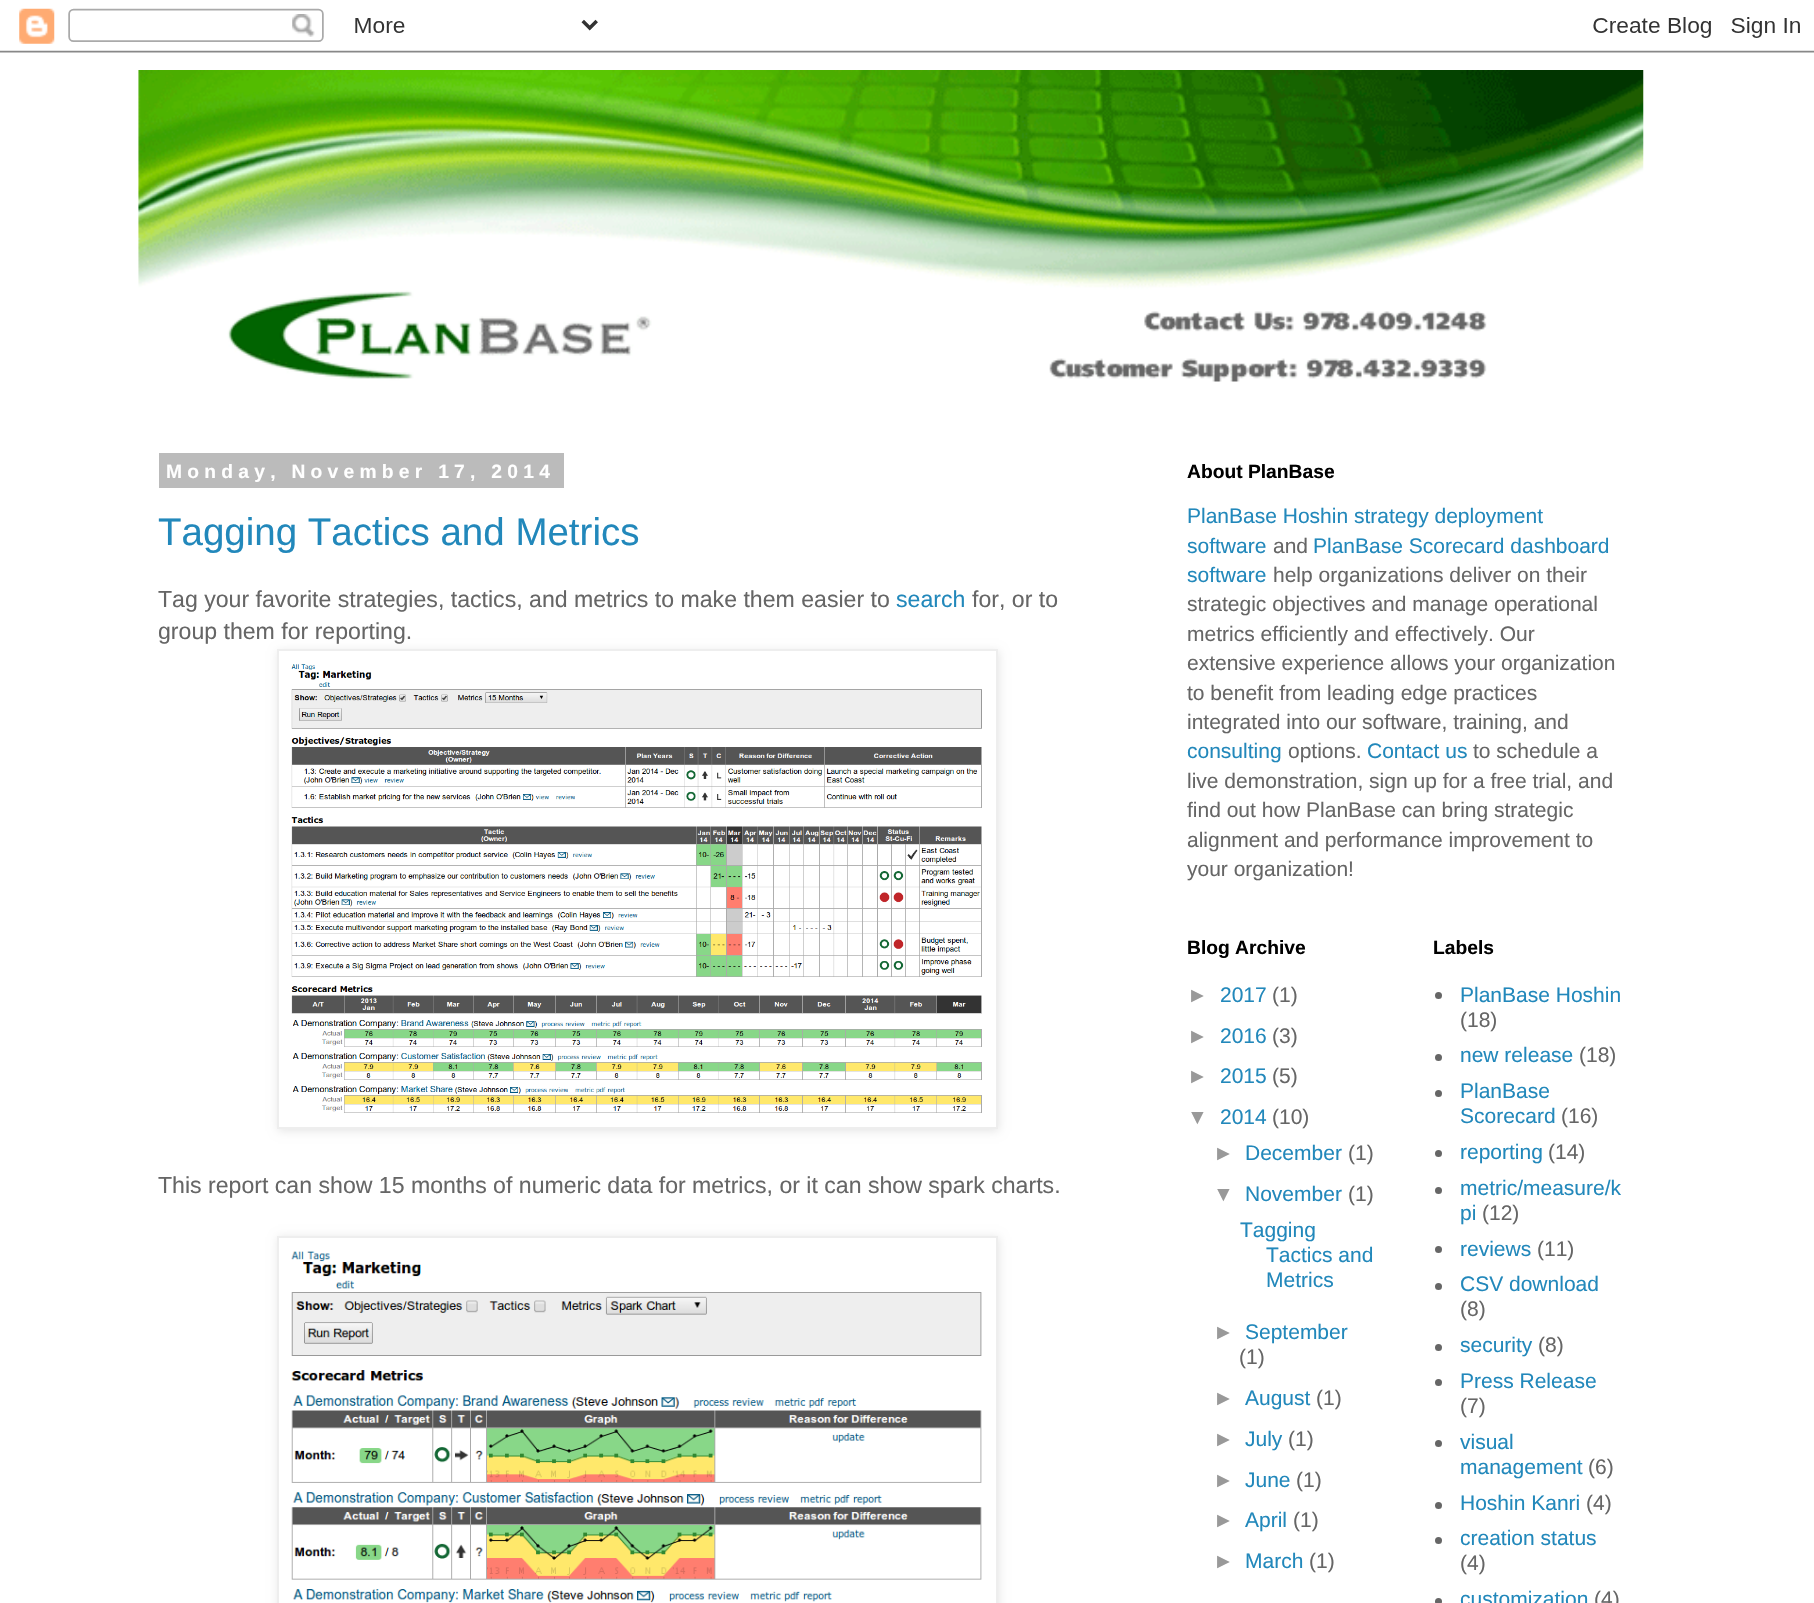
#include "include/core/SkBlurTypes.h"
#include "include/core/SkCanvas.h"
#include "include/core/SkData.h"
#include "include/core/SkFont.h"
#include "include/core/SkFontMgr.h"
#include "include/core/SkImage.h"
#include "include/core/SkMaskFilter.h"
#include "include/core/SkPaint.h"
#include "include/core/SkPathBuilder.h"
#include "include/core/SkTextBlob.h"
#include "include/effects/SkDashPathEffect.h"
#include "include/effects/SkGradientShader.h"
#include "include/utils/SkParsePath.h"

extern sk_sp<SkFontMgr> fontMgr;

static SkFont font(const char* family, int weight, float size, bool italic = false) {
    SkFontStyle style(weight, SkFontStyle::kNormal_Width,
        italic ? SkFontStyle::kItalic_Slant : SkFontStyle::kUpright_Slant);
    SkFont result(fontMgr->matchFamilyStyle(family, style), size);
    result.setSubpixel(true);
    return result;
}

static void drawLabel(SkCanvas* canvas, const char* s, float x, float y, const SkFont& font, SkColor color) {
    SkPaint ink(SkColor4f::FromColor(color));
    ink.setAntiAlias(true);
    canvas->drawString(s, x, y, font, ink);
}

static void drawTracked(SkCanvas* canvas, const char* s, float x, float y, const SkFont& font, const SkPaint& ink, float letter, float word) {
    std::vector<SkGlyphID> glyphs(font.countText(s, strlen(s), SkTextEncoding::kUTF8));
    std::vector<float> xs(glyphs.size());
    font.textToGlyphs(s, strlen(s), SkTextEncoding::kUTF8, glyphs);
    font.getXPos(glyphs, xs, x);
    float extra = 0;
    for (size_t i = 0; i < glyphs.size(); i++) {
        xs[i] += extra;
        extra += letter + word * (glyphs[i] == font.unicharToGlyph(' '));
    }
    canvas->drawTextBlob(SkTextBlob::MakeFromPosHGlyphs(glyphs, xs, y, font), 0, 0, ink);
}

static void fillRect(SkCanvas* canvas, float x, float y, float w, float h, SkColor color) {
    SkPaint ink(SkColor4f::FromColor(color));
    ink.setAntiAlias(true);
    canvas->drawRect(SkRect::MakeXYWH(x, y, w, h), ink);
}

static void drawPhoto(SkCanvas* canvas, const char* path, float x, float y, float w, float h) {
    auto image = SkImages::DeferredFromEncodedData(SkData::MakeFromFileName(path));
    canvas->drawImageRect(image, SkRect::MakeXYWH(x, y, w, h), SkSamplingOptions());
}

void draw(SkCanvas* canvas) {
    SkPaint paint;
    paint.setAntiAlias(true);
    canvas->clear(0xFFFFFFFF);
    drawPhoto(canvas, "assets/img1.png", 0, 8, 1814, 45);
    drawPhoto(canvas, "assets/img2.png", 138, 70, 1506, 312);
    fillRect(canvas, 159, 453, 405, 35, 0xFFBBBBBB);
    SkFont font1 = font("Liberation Sans", 700, 19.25f);
    paint.setColor(0xFFFFFFFF);
    drawTracked(canvas, "Monday, November 17, 2014", 166, 478, font1, paint, 5.25f, 0);
    SkFont font2 = font("Liberation Sans", 400, 38.5f);
    drawLabel(canvas, "Tagging Tactics and Metrics", 158, 545, font2, 0xFF2288BB);
    SkFont font3 = font("Liberation Sans", 400, 23.1f);
    drawLabel(canvas, "Tag your favorite strategies, tactics, and metrics to make them easier to", 158, 607, font3, 0xFF666666);
    drawLabel(canvas, "search", 896, 607, font3, 0xFF2288BB);
    drawLabel(canvas, "for, or to", 972, 607, font3, 0xFF666666);
    drawLabel(canvas, "group them for reporting.", 158, 639, font3, 0xFF666666);
    paint.setColor(0x1A000000);
    paint.setMaskFilter(SkMaskFilter::MakeBlur(kNormal_SkBlurStyle, 4.5f));
    canvas->drawRect(SkRect::MakeXYWH(278, 651, 721, 480), paint);
    paint.setMaskFilter(nullptr);
    paint.setColor(0xFFFFFFFF);
    canvas->drawRect(SkRect::MakeXYWH(278, 650, 719, 478), paint);
    paint.setStroke(true);
    paint.setStrokeWidth(2);
    paint.setColor(0xFFEEEEEE);
    canvas->drawRect(SkRect::MakeXYWH(278, 650, 719, 478), paint);
    drawPhoto(canvas, "assets/img3.png", 291, 664, 691, 449);
    drawLabel(canvas, "This report can show 15 months of numeric data for metrics, or it can show spark charts.", 158, 1193, font3, 0xFF666666);
    paint.setStroke(false);
    paint.setColor(0x1A000000);
    paint.setMaskFilter(SkMaskFilter::MakeBlur(kNormal_SkBlurStyle, 4.5f));
    canvas->drawRect(SkRect::MakeXYWH(278, 1237, 721, 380), paint);
    paint.setMaskFilter(nullptr);
    paint.setColor(0xFFFFFFFF);
    canvas->drawRect(SkRect::MakeXYWH(278, 1237, 719, 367), paint);
    paint.setStroke(true);
    paint.setColor(0xFFEEEEEE);
    canvas->drawRect(SkRect::MakeXYWH(278, 1237, 719, 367), paint);
    drawPhoto(canvas, "assets/img4.png", 291, 1251, 691, 352);
    drawLabel(canvas, "About PlanBase", 1187, 478, font1, 0xFF000000);
    SkFont font4 = font("Liberation Sans", 400, 21);
    drawLabel(canvas, "PlanBase Hoshin strategy deployment", 1187, 523, font4, 0xFF2288BB);
    drawLabel(canvas, "software", 1187, 553, font4, 0xFF2288BB);
    drawLabel(canvas, "and", 1273, 553, font4, 0xFF666666);
    drawLabel(canvas, "PlanBase Scorecard dashboard", 1313, 553, font4, 0xFF2288BB);
    drawLabel(canvas, "software", 1187, 582, font4, 0xFF2288BB);
    drawLabel(canvas, "help organizations deliver on their", 1273, 582, font4, 0xFF666666);
    drawLabel(canvas, "strategic objectives and manage operational", 1187, 611, font4, 0xFF666666);
    drawLabel(canvas, "metrics efficiently and effectively. Our", 1187, 641, font4, 0xFF666666);
    drawLabel(canvas, "extensive experience allows your organization", 1187, 670, font4, 0xFF666666);
    drawLabel(canvas, "to benefit from leading edge practices", 1187, 700, font4, 0xFF666666);
    drawLabel(canvas, "integrated into our software, training, and", 1187, 729, font4, 0xFF666666);
    drawLabel(canvas, "consulting", 1187, 758, font4, 0xFF2288BB);
    drawLabel(canvas, "options.", 1288, 758, font4, 0xFF666666);
    drawLabel(canvas, "Contact us", 1367, 758, font4, 0xFF2288BB);
    drawLabel(canvas, "to schedule a", 1473, 758, font4, 0xFF666666);
    drawLabel(canvas, "live demonstration, sign up for a free trial, and", 1187, 788, font4, 0xFF666666);
    drawLabel(canvas, "find out how PlanBase can bring strategic", 1187, 817, font4, 0xFF666666);
    drawLabel(canvas, "alignment and performance improvement to", 1187, 847, font4, 0xFF666666);
    drawLabel(canvas, "your organization!", 1187, 876, font4, 0xFF666666);
    drawLabel(canvas, "Blog Archive", 1187, 954, font1, 0xFF000000);
    drawLabel(canvas, "►", 1187, 1002, font4, 0xFF999999);
    drawLabel(canvas, "2017", 1220, 1002, font4, 0xFF2288BB);
    drawLabel(canvas, "(1)", 1272, 1002, font4, 0xFF666666);
    drawLabel(canvas, "►", 1187, 1043, font4, 0xFF999999);
    drawLabel(canvas, "2016", 1220, 1043, font4, 0xFF2288BB);
    drawLabel(canvas, "(3)", 1272, 1043, font4, 0xFF666666);
    drawLabel(canvas, "►", 1187, 1083, font4, 0xFF999999);
    drawLabel(canvas, "2015", 1220, 1083, font4, 0xFF2288BB);
    drawLabel(canvas, "(5)", 1272, 1083, font4, 0xFF666666);
    drawLabel(canvas, "▼", 1187, 1124, font4, 0xFF999999);
    drawLabel(canvas, "2014", 1220, 1124, font4, 0xFF2288BB);
    drawLabel(canvas, "(10)", 1272, 1124, font4, 0xFF666666);
    drawLabel(canvas, "►", 1213, 1160, font4, 0xFF999999);
    drawLabel(canvas, "December", 1245, 1160, font4, 0xFF2288BB);
    drawLabel(canvas, "(1)", 1348, 1160, font4, 0xFF666666);
    drawLabel(canvas, "▼", 1213, 1201, font4, 0xFF999999);
    drawLabel(canvas, "November", 1245, 1201, font4, 0xFF2288BB);
    drawLabel(canvas, "(1)", 1348, 1201, font4, 0xFF666666);
    drawLabel(canvas, "Tagging", 1240, 1237, font4, 0xFF2288BB);
    drawLabel(canvas, "Tactics and", 1266, 1262, font4, 0xFF2288BB);
    drawLabel(canvas, "Metrics", 1266, 1287, font4, 0xFF2288BB);
    drawLabel(canvas, "►", 1213, 1339, font4, 0xFF999999);
    drawLabel(canvas, "September", 1245, 1339, font4, 0xFF2288BB);
    drawLabel(canvas, "(1)", 1239, 1364, font4, 0xFF666666);
    drawLabel(canvas, "►", 1213, 1405, font4, 0xFF999999);
    drawLabel(canvas, "August", 1245, 1405, font4, 0xFF2288BB);
    drawLabel(canvas, "(1)", 1316, 1405, font4, 0xFF666666);
    drawLabel(canvas, "►", 1213, 1446, font4, 0xFF999999);
    drawLabel(canvas, "July", 1245, 1446, font4, 0xFF2288BB);
    drawLabel(canvas, "(1)", 1288, 1446, font4, 0xFF666666);
    drawLabel(canvas, "►", 1213, 1487, font4, 0xFF999999);
    drawLabel(canvas, "June", 1245, 1487, font4, 0xFF2288BB);
    drawLabel(canvas, "(1)", 1296, 1487, font4, 0xFF666666);
    drawLabel(canvas, "►", 1213, 1527, font4, 0xFF999999);
    drawLabel(canvas, "April", 1245, 1527, font4, 0xFF2288BB);
    drawLabel(canvas, "(1)", 1293, 1527, font4, 0xFF666666);
    drawLabel(canvas, "►", 1213, 1568, font4, 0xFF999999);
    drawLabel(canvas, "March", 1245, 1568, font4, 0xFF2288BB);
    drawLabel(canvas, "(1)", 1309, 1568, font4, 0xFF666666);
    drawLabel(canvas, "Labels", 1433, 954, font1, 0xFF000000);
    paint.setStroke(false);
    paint.setColor(0xFF666666);
    canvas->drawCircle(1438.5f, 995.5f, 3.5f, paint);
    drawLabel(canvas, "PlanBase Hoshin", 1460, 1002, font4, 0xFF2288BB);
    drawLabel(canvas, "(18)", 1460, 1027, font4, 0xFF666666);
    canvas->drawCircle(1438.5f, 1057.5f, 3.5f, paint);
    drawLabel(canvas, "new release", 1460, 1062, font4, 0xFF2288BB);
    drawLabel(canvas, "(18)", 1579, 1062, font4, 0xFF666666);
    canvas->drawCircle(1438.5f, 1093.5f, 3.5f, paint);
    drawLabel(canvas, "PlanBase", 1460, 1098, font4, 0xFF2288BB);
    drawLabel(canvas, "Scorecard", 1460, 1123, font4, 0xFF2288BB);
    drawLabel(canvas, "(16)", 1561, 1123, font4, 0xFF666666);
    canvas->drawCircle(1438.5f, 1153.5f, 3.5f, paint);
    drawLabel(canvas, "reporting", 1460, 1159, font4, 0xFF2288BB);
    drawLabel(canvas, "(14)", 1548, 1159, font4, 0xFF666666);
    canvas->drawCircle(1438.5f, 1190.5f, 3.5f, paint);
    drawLabel(canvas, "metric/measure/k", 1460, 1195, font4, 0xFF2288BB);
    drawLabel(canvas, "pi", 1460, 1220, font4, 0xFF2288BB);
    drawLabel(canvas, "(12)", 1482, 1220, font4, 0xFF666666);
    canvas->drawCircle(1438.5f, 1249.5f, 3.5f, paint);
    drawLabel(canvas, "reviews", 1460, 1256, font4, 0xFF2288BB);
    drawLabel(canvas, "(11)", 1537, 1256, font4, 0xFF666666);
    canvas->drawCircle(1438.5f, 1286.5f, 3.5f, paint);
    drawLabel(canvas, "CSV download", 1460, 1291, font4, 0xFF2288BB);
    drawLabel(canvas, "(8)", 1460, 1316, font4, 0xFF666666);
    canvas->drawCircle(1438.5f, 1347.5f, 3.5f, paint);
    drawLabel(canvas, "security", 1460, 1352, font4, 0xFF2288BB);
    drawLabel(canvas, "(8)", 1538, 1352, font4, 0xFF666666);
    canvas->drawCircle(1438.5f, 1382.5f, 3.5f, paint);
    drawLabel(canvas, "Press Release", 1460, 1388, font4, 0xFF2288BB);
    drawLabel(canvas, "(7)", 1460, 1413, font4, 0xFF666666);
    canvas->drawCircle(1438.5f, 1443.5f, 3.5f, paint);
    drawLabel(canvas, "visual", 1460, 1449, font4, 0xFF2288BB);
    drawLabel(canvas, "management", 1460, 1474, font4, 0xFF2288BB);
    drawLabel(canvas, "(6)", 1588, 1474, font4, 0xFF666666);
    canvas->drawCircle(1438.5f, 1505.5f, 3.5f, paint);
    drawLabel(canvas, "Hoshin Kanri", 1460, 1510, font4, 0xFF2288BB);
    drawLabel(canvas, "(4)", 1586, 1510, font4, 0xFF666666);
    canvas->drawCircle(1438.5f, 1540.5f, 3.5f, paint);
    drawLabel(canvas, "creation status", 1460, 1545, font4, 0xFF2288BB);
    drawLabel(canvas, "(4)", 1460, 1570, font4, 0xFF666666);
    canvas->drawCircle(1438.5f, 1601.5f, 3.5f, paint);
    drawLabel(canvas, "customization", 1460, 1606, font4, 0xFF2288BB);
    drawLabel(canvas, "(4)", 1594, 1606, font4, 0xFF666666);
}
